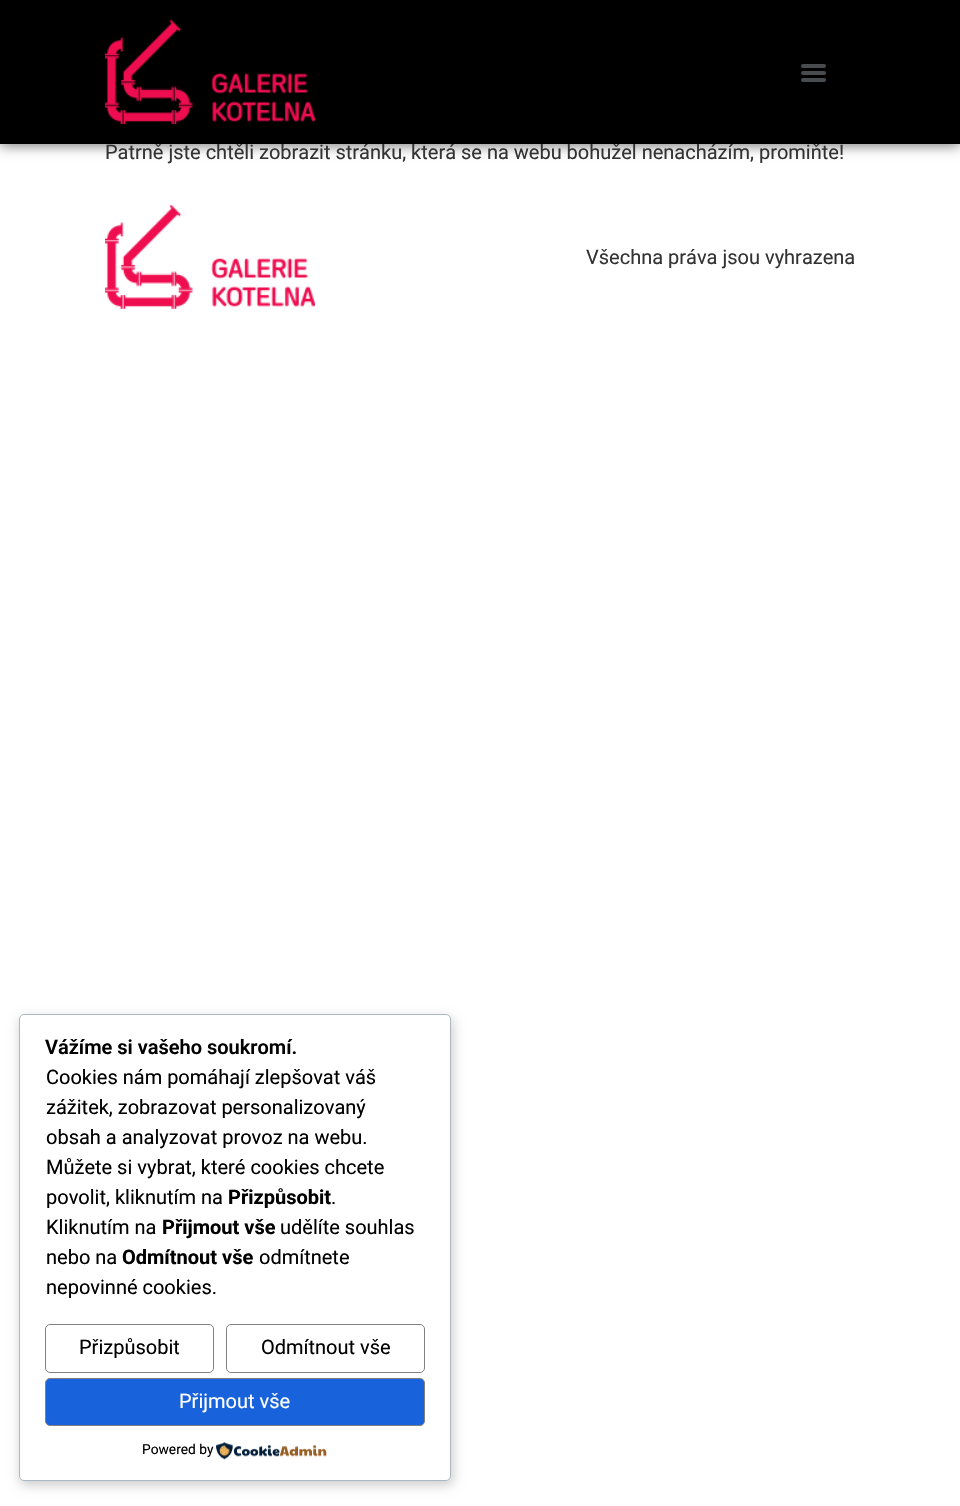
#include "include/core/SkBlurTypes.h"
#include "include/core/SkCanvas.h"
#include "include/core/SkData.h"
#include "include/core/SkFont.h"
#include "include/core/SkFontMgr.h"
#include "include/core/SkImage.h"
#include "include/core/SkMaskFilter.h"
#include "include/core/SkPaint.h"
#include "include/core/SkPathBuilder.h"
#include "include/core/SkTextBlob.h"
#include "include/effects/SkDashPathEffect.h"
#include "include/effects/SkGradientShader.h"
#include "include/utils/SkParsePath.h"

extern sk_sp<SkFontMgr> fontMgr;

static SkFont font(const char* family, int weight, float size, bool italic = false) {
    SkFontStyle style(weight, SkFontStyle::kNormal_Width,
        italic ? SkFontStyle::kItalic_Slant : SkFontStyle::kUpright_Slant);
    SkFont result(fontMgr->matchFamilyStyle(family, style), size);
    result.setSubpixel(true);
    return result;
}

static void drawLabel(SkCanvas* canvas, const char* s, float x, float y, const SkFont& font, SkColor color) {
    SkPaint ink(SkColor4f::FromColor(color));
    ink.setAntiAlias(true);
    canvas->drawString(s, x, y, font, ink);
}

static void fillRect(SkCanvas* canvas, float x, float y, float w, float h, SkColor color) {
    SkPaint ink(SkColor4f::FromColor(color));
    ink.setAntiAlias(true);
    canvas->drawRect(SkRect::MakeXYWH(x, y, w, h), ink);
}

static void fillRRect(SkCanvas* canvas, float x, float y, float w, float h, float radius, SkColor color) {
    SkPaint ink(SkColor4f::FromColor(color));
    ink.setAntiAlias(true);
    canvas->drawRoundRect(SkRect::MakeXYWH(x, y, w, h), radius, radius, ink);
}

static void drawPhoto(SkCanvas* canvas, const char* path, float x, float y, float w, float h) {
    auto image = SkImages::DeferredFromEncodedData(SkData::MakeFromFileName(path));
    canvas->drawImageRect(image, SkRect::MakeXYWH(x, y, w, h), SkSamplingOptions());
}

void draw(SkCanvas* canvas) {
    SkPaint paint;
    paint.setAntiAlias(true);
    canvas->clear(0xFFFFFFFF);
    paint.setColor(0x80000000);
    paint.setMaskFilter(SkMaskFilter::MakeBlur(kNormal_SkBlurStyle, 6));
    canvas->drawRect(SkRect::MakeXYWH(0, 3, 960, 143), paint);
    paint.setMaskFilter(nullptr);
    fillRect(canvas, 0, 0, 960, 144, 0xFF000000);
    drawPhoto(canvas, "assets/img1.png", 105, 20, 210, 104);
    fillRRect(canvas, 801, 71, 25, 4, 2, 0xFF494C4F);
    fillRRect(canvas, 801, 64, 25, 4, 2, 0xFF494C4F);
    fillRRect(canvas, 801, 78, 25, 4, 2, 0xFF494C4F);
    SkFont font1 = font("Roboto", 400, 20);
    drawLabel(canvas, "Patrně jste chtěli zobrazit stránku, která se na webu bohužel nenacházím, promiňte!", 105, 159, font1, 0xFF333333);
    drawPhoto(canvas, "assets/img2.png", 105, 205, 210, 104);
    drawLabel(canvas, "Všechna práva jsou vyhrazena", 586, 264, font1, 0xFF333333);
    paint.setColor(0x33000000);
    paint.setMaskFilter(SkMaskFilter::MakeBlur(kNormal_SkBlurStyle, 6));
    canvas->drawRoundRect(SkRect::MakeXYWH(20, 1018, 433, 467), 5, 5, paint);
    paint.setMaskFilter(nullptr);
    paint.setColor(0xFFFFFFFF);
    canvas->drawRoundRect(SkRect::MakeXYWH(19.5f, 1014.5f, 431, 466), 4.5f, 4.5f, paint);
    paint.setStroke(true);
    paint.setStrokeWidth(1);
    paint.setColor(0xFFABB8C3);
    canvas->drawRoundRect(SkRect::MakeXYWH(19.5f, 1014.5f, 431, 466), 4.5f, 4.5f, paint);
    SkFont font2 = font("Roboto", 600, 20);
    drawLabel(canvas, "Vážíme si vašeho soukromí.", 45, 1054, font2, 0xFF000000);
    drawLabel(canvas, "Cookies nám pomáhají zlepšovat váš", 46, 1084, font1, 0xFF000000);
    drawLabel(canvas, "zážitek, zobrazovat personalizovaný", 46, 1114, font1, 0xFF000000);
    drawLabel(canvas, "obsah a analyzovat provoz na webu.", 46, 1144, font1, 0xFF000000);
    drawLabel(canvas, "Můžete si vybrat, které cookies chcete", 46, 1174, font1, 0xFF000000);
    drawLabel(canvas, "povolit, kliknutím na", 46, 1204, font1, 0xFF000000);
    SkFont font3 = font("Roboto", 700, 20);
    drawLabel(canvas, "Přizpůsobit", 228, 1204, font3, 0xFF000000);
    drawLabel(canvas, ".", 331, 1204, font1, 0xFF000000);
    drawLabel(canvas, "Kliknutím na", 46, 1234, font1, 0xFF000000);
    drawLabel(canvas, "Přijmout vše", 162, 1234, font3, 0xFF000000);
    drawLabel(canvas, "udělíte souhlas", 280, 1234, font1, 0xFF000000);
    drawLabel(canvas, "nebo na", 46, 1264, font1, 0xFF000000);
    drawLabel(canvas, "Odmítnout vše", 122, 1264, font3, 0xFF000000);
    drawLabel(canvas, "odmítnete", 259, 1264, font1, 0xFF000000);
    drawLabel(canvas, "nepovinné cookies.", 46, 1294, font1, 0xFF000000);
    paint.setColor(0xFF808080);
    canvas->drawRoundRect(SkRect::MakeXYWH(45.5f, 1324.5f, 168, 48), 4.5f, 4.5f, paint);
    drawLabel(canvas, "Přizpůsobit", 79, 1354, font1, 0xFF000000);
    canvas->drawRoundRect(SkRect::MakeXYWH(226.5f, 1324.5f, 198, 48), 4.5f, 4.5f, paint);
    drawLabel(canvas, "Odmítnout vše", 261, 1354, font1, 0xFF000000);
    paint.setStroke(false);
    paint.setColor(0xFF1863DC);
    canvas->drawRoundRect(SkRect::MakeXYWH(45.5f, 1378.5f, 379, 47), 4.5f, 4.5f, paint);
    paint.setStroke(true);
    paint.setColor(0xFF808080);
    canvas->drawRoundRect(SkRect::MakeXYWH(45.5f, 1378.5f, 379, 47), 4.5f, 4.5f, paint);
    drawLabel(canvas, "Přijmout vše", 179, 1408, font1, 0xFFFFFFFF);
    SkFont font4 = font("Roboto", 400, 13.75f);
    drawLabel(canvas, "Powered by", 142, 1454, font4, 0xFF000000);
    drawPhoto(canvas, "assets/img3.png", 216, 1442, 111, 18);
}
